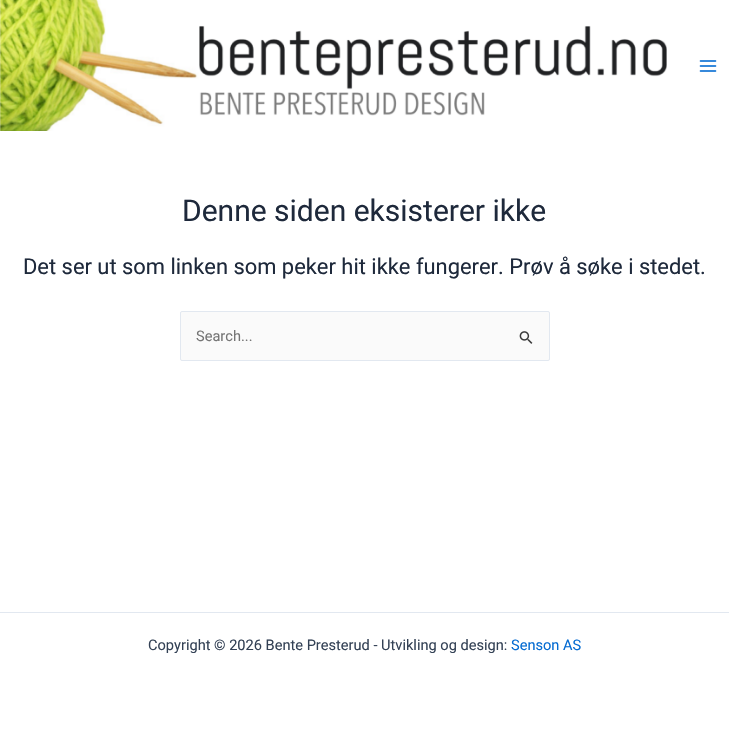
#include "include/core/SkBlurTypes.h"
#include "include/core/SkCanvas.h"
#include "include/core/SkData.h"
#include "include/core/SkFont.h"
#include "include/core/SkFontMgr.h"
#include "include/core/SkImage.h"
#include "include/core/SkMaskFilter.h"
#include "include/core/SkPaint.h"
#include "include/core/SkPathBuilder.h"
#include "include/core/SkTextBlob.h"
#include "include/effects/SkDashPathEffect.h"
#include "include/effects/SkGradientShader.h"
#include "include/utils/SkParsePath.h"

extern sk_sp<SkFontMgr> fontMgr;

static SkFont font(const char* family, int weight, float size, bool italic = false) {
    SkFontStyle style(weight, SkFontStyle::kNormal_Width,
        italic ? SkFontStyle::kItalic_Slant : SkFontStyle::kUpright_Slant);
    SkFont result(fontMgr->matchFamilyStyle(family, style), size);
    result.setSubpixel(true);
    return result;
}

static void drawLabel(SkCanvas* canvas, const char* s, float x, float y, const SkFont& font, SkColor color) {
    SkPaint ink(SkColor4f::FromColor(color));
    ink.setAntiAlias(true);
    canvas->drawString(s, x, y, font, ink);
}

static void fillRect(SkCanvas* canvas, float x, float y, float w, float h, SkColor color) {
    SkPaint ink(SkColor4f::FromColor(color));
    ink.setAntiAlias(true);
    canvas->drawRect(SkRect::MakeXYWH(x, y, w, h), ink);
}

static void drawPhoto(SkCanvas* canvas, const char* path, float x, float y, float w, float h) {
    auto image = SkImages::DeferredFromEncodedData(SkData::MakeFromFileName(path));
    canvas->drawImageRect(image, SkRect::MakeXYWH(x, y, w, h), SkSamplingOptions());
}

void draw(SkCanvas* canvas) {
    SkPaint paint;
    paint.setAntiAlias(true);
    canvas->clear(0xFFFFFFFF);
    drawPhoto(canvas, "assets/img1.png", 0, 0, 667, 131);
    drawPhoto(canvas, "assets/img2.png", 699, 60, 18, 12);
    SkFont font1 = font("Roboto", 400, 30);
    drawLabel(canvas, "Denne siden eksisterer ikke", 182, 221, font1, 0xFF1E293B);
    SkFont font2 = font("Roboto", 400, 21.9f);
    drawLabel(canvas, "Det ser ut som linken som peker hit ikke fungerer. Prøv å søke i stedet.", 23, 274, font2, 0xFF1E293B);
    paint.setColor(0xFFFAFAFA);
    canvas->drawRoundRect(SkRect::MakeXYWH(180.5f, 311.5f, 369, 49), 1.5f, 1.5f, paint);
    paint.setStroke(true);
    paint.setStrokeWidth(1);
    paint.setColor(0xFFE2E8F0);
    canvas->drawRoundRect(SkRect::MakeXYWH(180.5f, 311.5f, 369, 49), 1.5f, 1.5f, paint);
    SkFont font3 = font("Roboto", 400, 14.6f);
    drawLabel(canvas, "Search...", 196, 341, font3, 0xFF757575);
    drawPhoto(canvas, "assets/img3.png", 519, 331, 14, 13);
    fillRect(canvas, 0, 612, 729, 1, 0xFFE2E8F0);
    drawLabel(canvas, "Copyright © 2026 Bente Presterud - Utvikling og design:", 148, 650, font3, 0xFF334155);
    drawLabel(canvas, "Senson AS", 511, 650, font3, 0xFF046BD2);
}
